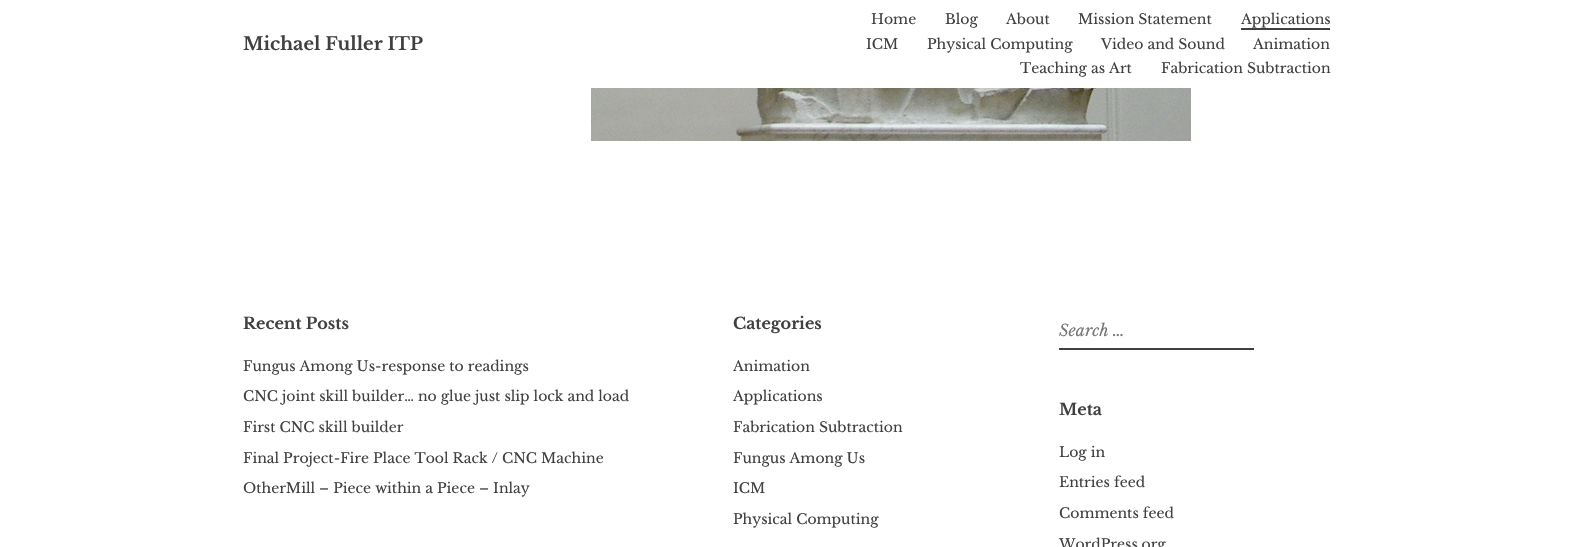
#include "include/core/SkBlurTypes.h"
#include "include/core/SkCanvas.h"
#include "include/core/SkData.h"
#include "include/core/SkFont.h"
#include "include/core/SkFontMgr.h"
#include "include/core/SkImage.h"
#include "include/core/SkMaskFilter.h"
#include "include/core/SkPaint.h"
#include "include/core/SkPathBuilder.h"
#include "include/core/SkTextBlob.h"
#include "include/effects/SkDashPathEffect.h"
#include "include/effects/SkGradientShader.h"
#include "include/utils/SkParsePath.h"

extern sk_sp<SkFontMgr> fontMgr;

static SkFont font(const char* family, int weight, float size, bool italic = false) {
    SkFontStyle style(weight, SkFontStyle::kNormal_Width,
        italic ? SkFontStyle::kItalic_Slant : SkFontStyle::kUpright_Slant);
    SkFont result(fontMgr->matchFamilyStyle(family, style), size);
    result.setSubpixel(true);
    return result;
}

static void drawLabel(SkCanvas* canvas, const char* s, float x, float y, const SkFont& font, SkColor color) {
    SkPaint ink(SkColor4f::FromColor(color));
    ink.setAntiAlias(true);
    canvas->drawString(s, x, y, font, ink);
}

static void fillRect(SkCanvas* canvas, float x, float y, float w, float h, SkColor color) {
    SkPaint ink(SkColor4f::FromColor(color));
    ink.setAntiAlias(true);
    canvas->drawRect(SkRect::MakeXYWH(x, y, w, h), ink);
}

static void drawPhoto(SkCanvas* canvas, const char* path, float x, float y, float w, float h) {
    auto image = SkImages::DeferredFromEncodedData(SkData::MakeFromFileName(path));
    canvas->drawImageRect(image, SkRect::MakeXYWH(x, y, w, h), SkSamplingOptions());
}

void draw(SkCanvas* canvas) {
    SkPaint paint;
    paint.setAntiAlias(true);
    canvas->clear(0xFFFFFFFF);
    SkFont font1 = font("Libre Baskerville", 700, 18);
    drawLabel(canvas, "Michael Fuller ITP", 243, 50, font1, 0xFF404040);
    SkFont font2 = font("Libre Baskerville", 400, 14);
    drawLabel(canvas, "Home", 871, 24, font2, 0xFF404040);
    drawLabel(canvas, "Blog", 945, 24, font2, 0xFF404040);
    drawLabel(canvas, "About", 1006, 24, font2, 0xFF404040);
    drawLabel(canvas, "Mission Statement", 1078, 24, font2, 0xFF404040);
    drawLabel(canvas, "Applications", 1241, 24, font2, 0xFF404040);
    fillRect(canvas, 1241, 28, 89, 2, 0xFF404040);
    drawLabel(canvas, "ICM", 866, 49, font2, 0xFF404040);
    drawLabel(canvas, "Physical Computing", 927, 49, font2, 0xFF404040);
    drawLabel(canvas, "Video and Sound", 1101, 49, font2, 0xFF404040);
    drawLabel(canvas, "Animation", 1253, 49, font2, 0xFF404040);
    drawLabel(canvas, "Teaching as Art", 1020, 73, font2, 0xFF404040);
    drawLabel(canvas, "Fabrication Subtraction", 1161, 73, font2, 0xFF404040);
    drawPhoto(canvas, "assets/img1.png", 591, 88, 600, 53);
    SkFont font3 = font("Libre Baskerville", 700, 16);
    drawLabel(canvas, "Recent Posts", 243, 329, font3, 0xFF404040);
    drawLabel(canvas, "Fungus Among Us-response to readings", 243, 371, font2, 0xFF404040);
    drawLabel(canvas, "CNC joint skill builder… no glue just slip lock and load", 243, 401, font2, 0xFF404040);
    drawLabel(canvas, "First CNC skill builder", 243, 432, font2, 0xFF404040);
    drawLabel(canvas, "Final Project-Fire Place Tool Rack / CNC Machine", 243, 463, font2, 0xFF404040);
    drawLabel(canvas, "OtherMill – Piece within a Piece – Inlay", 243, 493, font2, 0xFF404040);
    drawLabel(canvas, "Categories", 733, 329, font3, 0xFF404040);
    drawLabel(canvas, "Animation", 733, 371, font2, 0xFF404040);
    drawLabel(canvas, "Applications", 733, 401, font2, 0xFF404040);
    drawLabel(canvas, "Fabrication Subtraction", 733, 432, font2, 0xFF404040);
    drawLabel(canvas, "Fungus Among Us", 733, 463, font2, 0xFF404040);
    drawLabel(canvas, "ICM", 733, 493, font2, 0xFF404040);
    drawLabel(canvas, "Physical Computing", 733, 524, font2, 0xFF404040);
    fillRect(canvas, 1059, 348, 195, 2, 0xFF404040);
    SkFont font4 = font("Libre Baskerville", 400, 16, true);
    drawLabel(canvas, "Search …", 1059, 336, font4, 0xFF757575);
    drawLabel(canvas, "Meta", 1059, 415, font3, 0xFF404040);
    drawLabel(canvas, "Log in", 1059, 457, font2, 0xFF404040);
    drawLabel(canvas, "Entries feed", 1059, 487, font2, 0xFF404040);
    drawLabel(canvas, "Comments feed", 1059, 518, font2, 0xFF404040);
    drawLabel(canvas, "WordPress.org", 1059, 549, font2, 0xFF404040);
}
